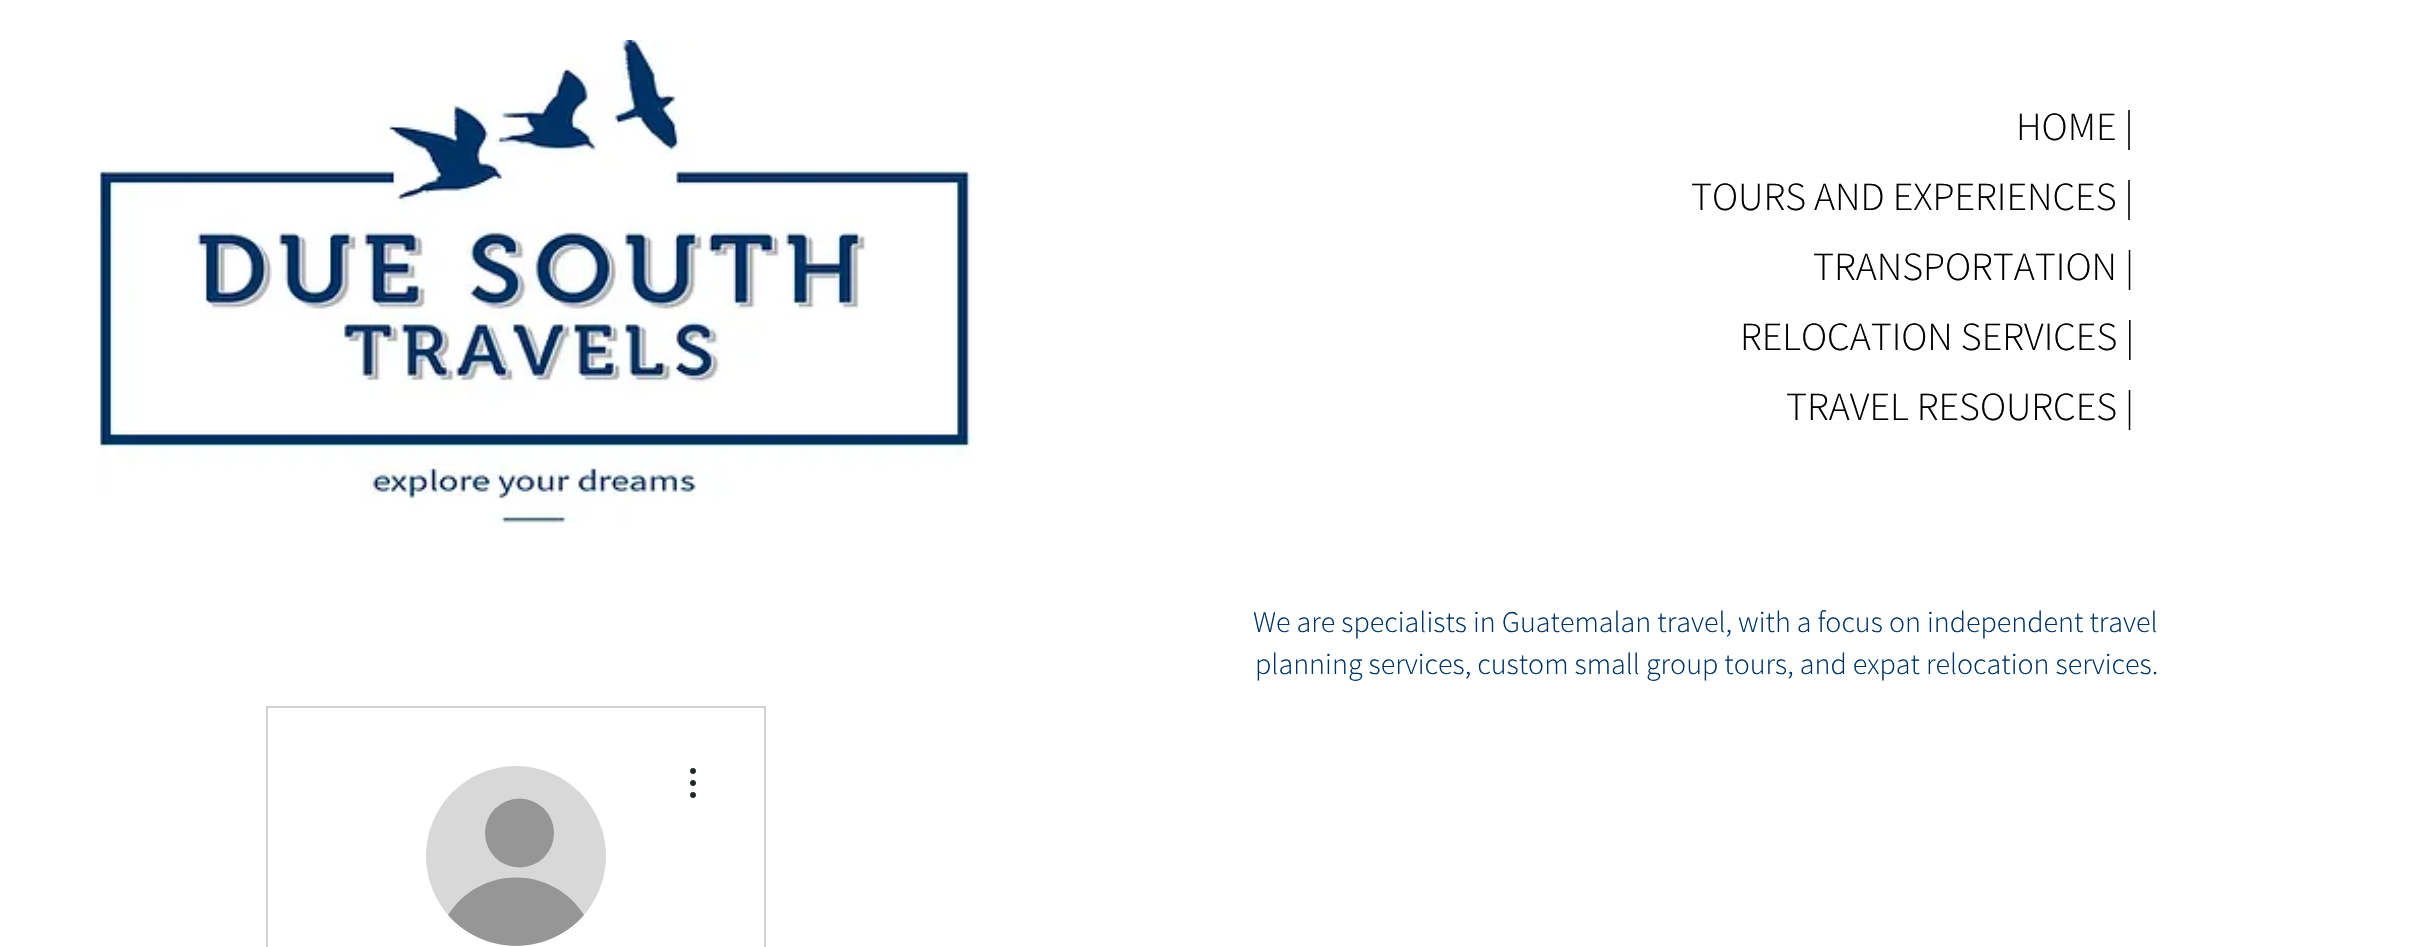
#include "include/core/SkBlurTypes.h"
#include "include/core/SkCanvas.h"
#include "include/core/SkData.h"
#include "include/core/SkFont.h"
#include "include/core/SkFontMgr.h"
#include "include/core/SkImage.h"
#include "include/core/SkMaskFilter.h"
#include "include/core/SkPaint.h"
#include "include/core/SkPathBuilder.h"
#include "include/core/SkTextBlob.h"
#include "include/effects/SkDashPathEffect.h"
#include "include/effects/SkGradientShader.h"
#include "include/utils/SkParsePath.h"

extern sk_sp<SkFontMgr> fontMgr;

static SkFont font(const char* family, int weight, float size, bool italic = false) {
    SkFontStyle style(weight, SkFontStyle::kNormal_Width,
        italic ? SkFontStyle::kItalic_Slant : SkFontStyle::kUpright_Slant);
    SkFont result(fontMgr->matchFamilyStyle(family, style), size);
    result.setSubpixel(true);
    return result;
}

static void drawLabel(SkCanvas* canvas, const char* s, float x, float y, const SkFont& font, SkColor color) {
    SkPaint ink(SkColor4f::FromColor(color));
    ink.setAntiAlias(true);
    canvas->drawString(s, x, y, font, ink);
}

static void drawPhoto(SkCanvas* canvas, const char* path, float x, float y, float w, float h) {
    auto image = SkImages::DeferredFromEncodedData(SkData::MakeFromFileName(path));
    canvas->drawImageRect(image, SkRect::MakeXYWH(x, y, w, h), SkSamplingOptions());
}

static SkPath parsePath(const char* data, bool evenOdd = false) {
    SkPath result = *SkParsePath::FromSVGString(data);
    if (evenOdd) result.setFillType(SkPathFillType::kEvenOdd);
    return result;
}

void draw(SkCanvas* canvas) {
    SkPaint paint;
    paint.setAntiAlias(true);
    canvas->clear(0xFFFFFFFF);
    drawPhoto(canvas, "assets/img1.png", 98, 40, 876, 484);
    SkFont font1 = font("Source Sans Pro", 300, 40);
    drawLabel(canvas, "HOME |", 2016, 140, font1, 0xFF000000);
    drawLabel(canvas, "TOURS AND EXPERIENCES |", 1691, 210, font1, 0xFF000000);
    drawLabel(canvas, "TRANSPORTATION |", 1813, 280, font1, 0xFF000000);
    drawLabel(canvas, "RELOCATION SERVICES |", 1740, 350, font1, 0xFF000000);
    drawLabel(canvas, "TRAVEL RESOURCES |", 1786, 420, font1, 0xFF000000);
    SkFont font2 = font("Source Sans Pro", 300, 30);
    drawLabel(canvas, "We are specialists in Guatemalan travel, with a focus on independent travel", 1253, 632, font2, 0xFF003465);
    drawLabel(canvas, "planning services, custom small group tours, and expat relocation services.", 1255, 674, font2, 0xFF003465);
    paint.setStroke(true);
    paint.setStrokeWidth(2);
    paint.setColor(0xFFD2D4D4);
    canvas->drawRect(SkRect::MakeXYWH(267, 707, 498, 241), paint);
    paint.setStroke(false);
    paint.setColor(0xFFD8D8D8);
    canvas->drawCircle(516, 856, 90, paint);
    paint.setColor(0xFF969696);
    canvas->drawCircle(519.5f, 833, 34.5f, paint);
    canvas->drawPath(parsePath("M584 915C548 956 484 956 448 915C480 865 552 865 584 915Z"), paint);
    drawPhoto(canvas, "assets/img2.png", 690, 768, 6, 30);
}
